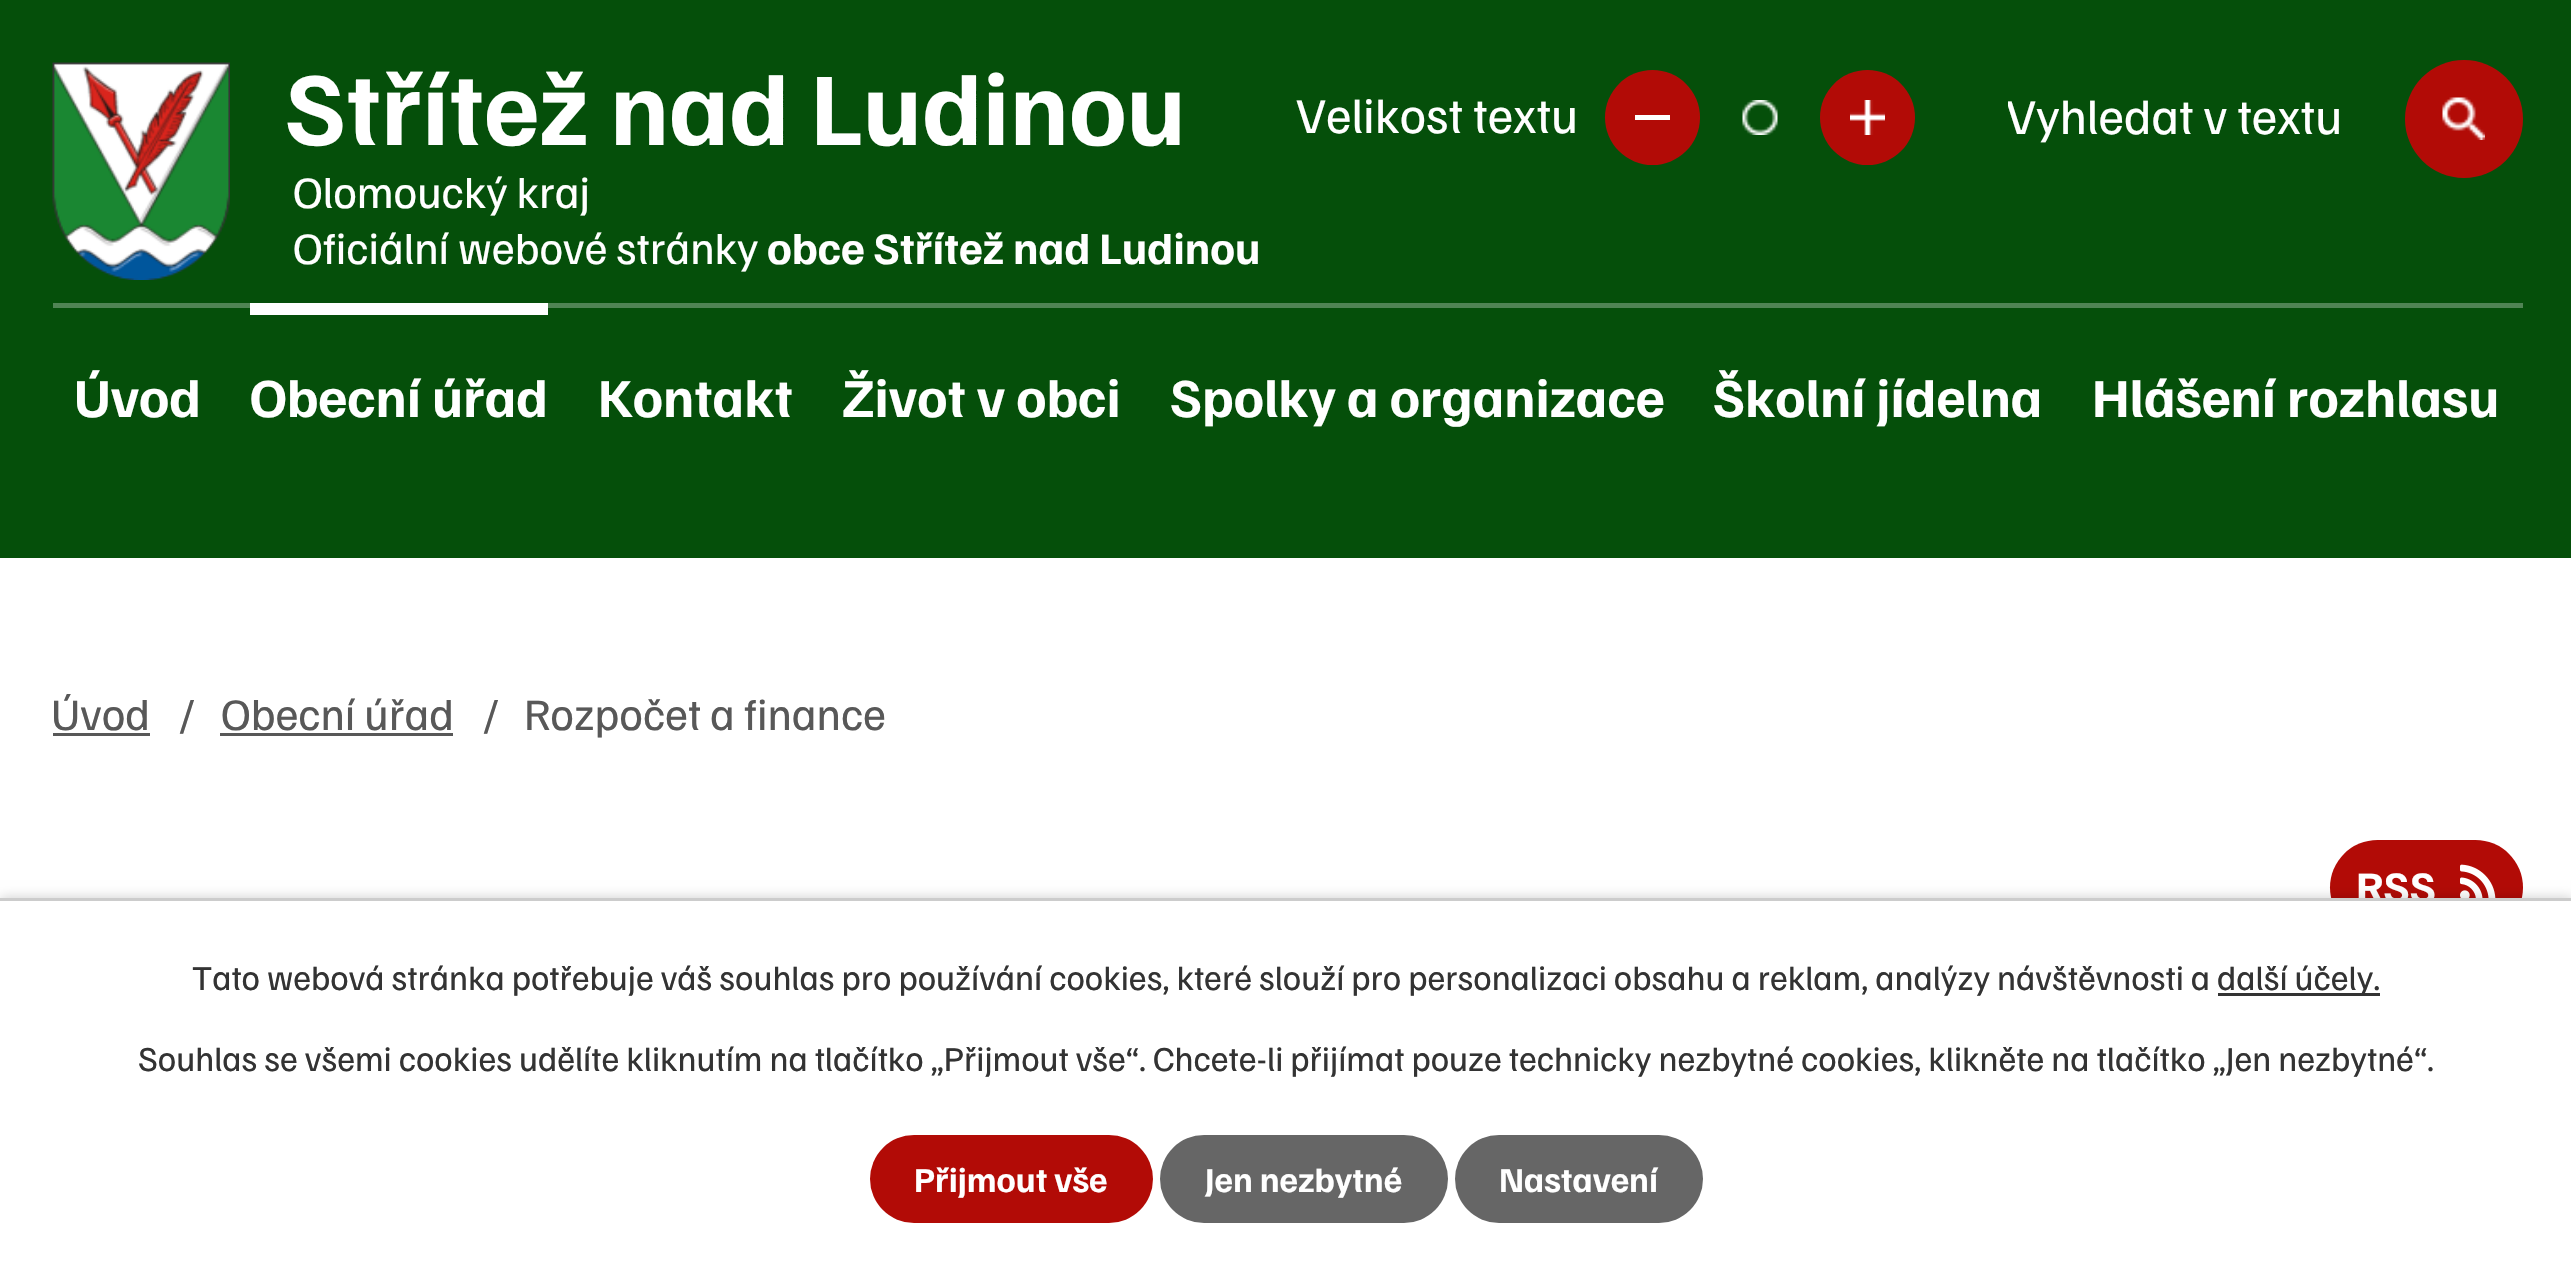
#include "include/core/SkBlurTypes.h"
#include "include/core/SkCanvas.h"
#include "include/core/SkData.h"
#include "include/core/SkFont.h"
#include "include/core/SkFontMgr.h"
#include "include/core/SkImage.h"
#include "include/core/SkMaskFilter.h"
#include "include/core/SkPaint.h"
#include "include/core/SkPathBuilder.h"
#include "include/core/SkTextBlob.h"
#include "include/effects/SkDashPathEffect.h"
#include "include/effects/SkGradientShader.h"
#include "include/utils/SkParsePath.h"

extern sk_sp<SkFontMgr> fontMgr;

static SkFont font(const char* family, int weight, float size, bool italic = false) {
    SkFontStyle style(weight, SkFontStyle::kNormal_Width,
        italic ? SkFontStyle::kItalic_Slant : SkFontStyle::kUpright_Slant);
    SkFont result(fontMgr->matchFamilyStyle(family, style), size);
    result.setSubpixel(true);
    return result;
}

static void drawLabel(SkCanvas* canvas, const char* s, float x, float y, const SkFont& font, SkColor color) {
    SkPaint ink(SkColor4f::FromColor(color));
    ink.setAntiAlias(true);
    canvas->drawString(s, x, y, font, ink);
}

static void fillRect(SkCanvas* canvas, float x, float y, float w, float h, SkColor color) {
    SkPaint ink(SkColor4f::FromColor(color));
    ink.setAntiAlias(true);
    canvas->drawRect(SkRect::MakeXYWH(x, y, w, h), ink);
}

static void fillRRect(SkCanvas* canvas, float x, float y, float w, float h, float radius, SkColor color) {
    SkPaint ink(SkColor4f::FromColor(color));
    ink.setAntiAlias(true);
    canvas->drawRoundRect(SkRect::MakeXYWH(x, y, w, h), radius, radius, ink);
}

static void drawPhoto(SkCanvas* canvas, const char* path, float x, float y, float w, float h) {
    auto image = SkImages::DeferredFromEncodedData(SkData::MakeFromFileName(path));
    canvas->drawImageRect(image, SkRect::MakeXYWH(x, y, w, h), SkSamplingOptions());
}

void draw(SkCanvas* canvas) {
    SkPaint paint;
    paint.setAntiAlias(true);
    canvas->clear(0xFFFFFFFF);
    fillRect(canvas, 0, 0, 2571, 558, 0xFF054F0A);
    drawPhoto(canvas, "assets/img1.png", 52, 62, 178, 218);
    SkFont font1 = font("Familjen Grotesk", 700, 104.75f);
    drawLabel(canvas, "Střítež nad Ludinou", 285, 145, font1, 0xFFFFFFFF);
    SkFont font2 = font("Familjen Grotesk", 400, 45);
    drawLabel(canvas, "Olomoucký kraj", 293, 208, font2, 0xFFFFFFFF);
    drawLabel(canvas, "Oficiální webové stránky", 293, 264, font2, 0xFFFFFFFF);
    SkFont font3 = font("Familjen Grotesk", 700, 45);
    drawLabel(canvas, "obce Střítež nad Ludinou", 767, 264, font3, 0xFFFFFFFF);
    SkFont font4 = font("Familjen Grotesk", 400, 50);
    drawLabel(canvas, "Velikost textu", 1296, 133, font4, 0xFFFFFFFF);
    paint.setColor(0xFFB20B06);
    canvas->drawCircle(1652.5f, 117.5f, 47.5f, paint);
    fillRect(canvas, 1635, 115, 35, 5, 0xFFFFFFFF);
    drawPhoto(canvas, "assets/img2.png", 1742, 100, 36, 35);
    canvas->drawCircle(1867.5f, 117.5f, 47.5f, paint);
    drawPhoto(canvas, "assets/img3.png", 1850, 100, 35, 35);
    canvas->save();
    canvas->clipRect(SkRect::MakeXYWH(2008, 85, 352, 60));
    drawLabel(canvas, "Vyhledat v textu", 2006, 134, font4, 0xFFFFFFFF);
    canvas->restore();
    canvas->drawCircle(2464, 119, 59, paint);
    drawPhoto(canvas, "assets/img4.png", 2442, 97, 43, 43);
    fillRect(canvas, 53, 303, 2470, 5, 0xFF508454);
    SkFont font5 = font("Familjen Grotesk", 700, 55);
    drawLabel(canvas, "Úvod", 74, 417, font5, 0xFFFFFFFF);
    fillRect(canvas, 250, 303, 298, 12, 0xFFFFFFFF);
    drawLabel(canvas, "Obecní úřad", 250, 417, font5, 0xFFFFFFFF);
    drawLabel(canvas, "Kontakt", 598, 417, font5, 0xFFFFFFFF);
    drawLabel(canvas, "Život v obci", 842, 417, font5, 0xFFFFFFFF);
    drawLabel(canvas, "Spolky a organizace", 1170, 417, font5, 0xFFFFFFFF);
    drawLabel(canvas, "Školní jídelna", 1713, 417, font5, 0xFFFFFFFF);
    drawLabel(canvas, "Hlášení rozhlasu", 2092, 417, font5, 0xFFFFFFFF);
    drawLabel(canvas, "Úvod", 51, 730, font2, 0xFF585858);
    fillRect(canvas, 53, 733, 97, 3, 0xFF585858);
    drawLabel(canvas, "/", 179, 730, font2, 0xFF585858);
    drawLabel(canvas, "Obecní úřad", 221, 730, font2, 0xFF585858);
    fillRect(canvas, 220, 733, 233, 3, 0xFF585858);
    drawLabel(canvas, "/", 483, 730, font2, 0xFF585858);
    drawLabel(canvas, "Rozpočet a finance", 524, 730, font2, 0xFF585858);
    fillRRect(canvas, 2330, 840, 193, 95, 47.5f, 0xFFB20B06);
    drawLabel(canvas, "RSS", 2356, 903, font3, 0xFFFFFFFF);
    drawPhoto(canvas, "assets/img5.png", 2460, 864, 36, 34);
    paint.setColor(0x33000000);
    paint.setMaskFilter(SkMaskFilter::MakeBlur(kNormal_SkBlurStyle, 6));
    canvas->drawRect(SkRect::MakeXYWH(0, 898, 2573, 372), paint);
    paint.setMaskFilter(nullptr);
    fillRect(canvas, 0, 901, 2571, 369, 0xFFFFFFFF);
    fillRect(canvas, 0, 898, 2571, 3, 0xFFCCCCCC);
    SkFont font6 = font("Familjen Grotesk", 400, 35);
    drawLabel(canvas, "Tato webová stránka potřebuje váš souhlas pro používání cookies, které slouží pro personalizaci obsahu a reklam, analýzy návštěvnosti a", 192, 990, font6, 0xFF333333);
    fillRect(canvas, 2218, 993, 162, 3, 0xFF333333);
    drawLabel(canvas, "další účely.", 2217, 990, font6, 0xFF333333);
    drawLabel(canvas, "Souhlas se všemi cookies udělíte kliknutím na tlačítko „Přijmout vše“. Chcete-li přijímat pouze technicky nezbytné cookies, klikněte na tlačítko „Jen nezbytné“.", 138, 1071, font6, 0xFF333333);
    fillRRect(canvas, 870, 1135, 283, 88, 44, 0xFFB20B06);
    SkFont font7 = font("Familjen Grotesk", 700, 35);
    drawLabel(canvas, "Přijmout vše", 914, 1192, font7, 0xFFFFFFFF);
    fillRRect(canvas, 1160, 1135, 288, 88, 44, 0xFF666666);
    drawLabel(canvas, "Jen nezbytné", 1205, 1192, font7, 0xFFFFFFFF);
    fillRRect(canvas, 1455, 1135, 248, 88, 44, 0xFF666666);
    drawLabel(canvas, "Nastavení", 1499, 1192, font7, 0xFFFFFFFF);
}
